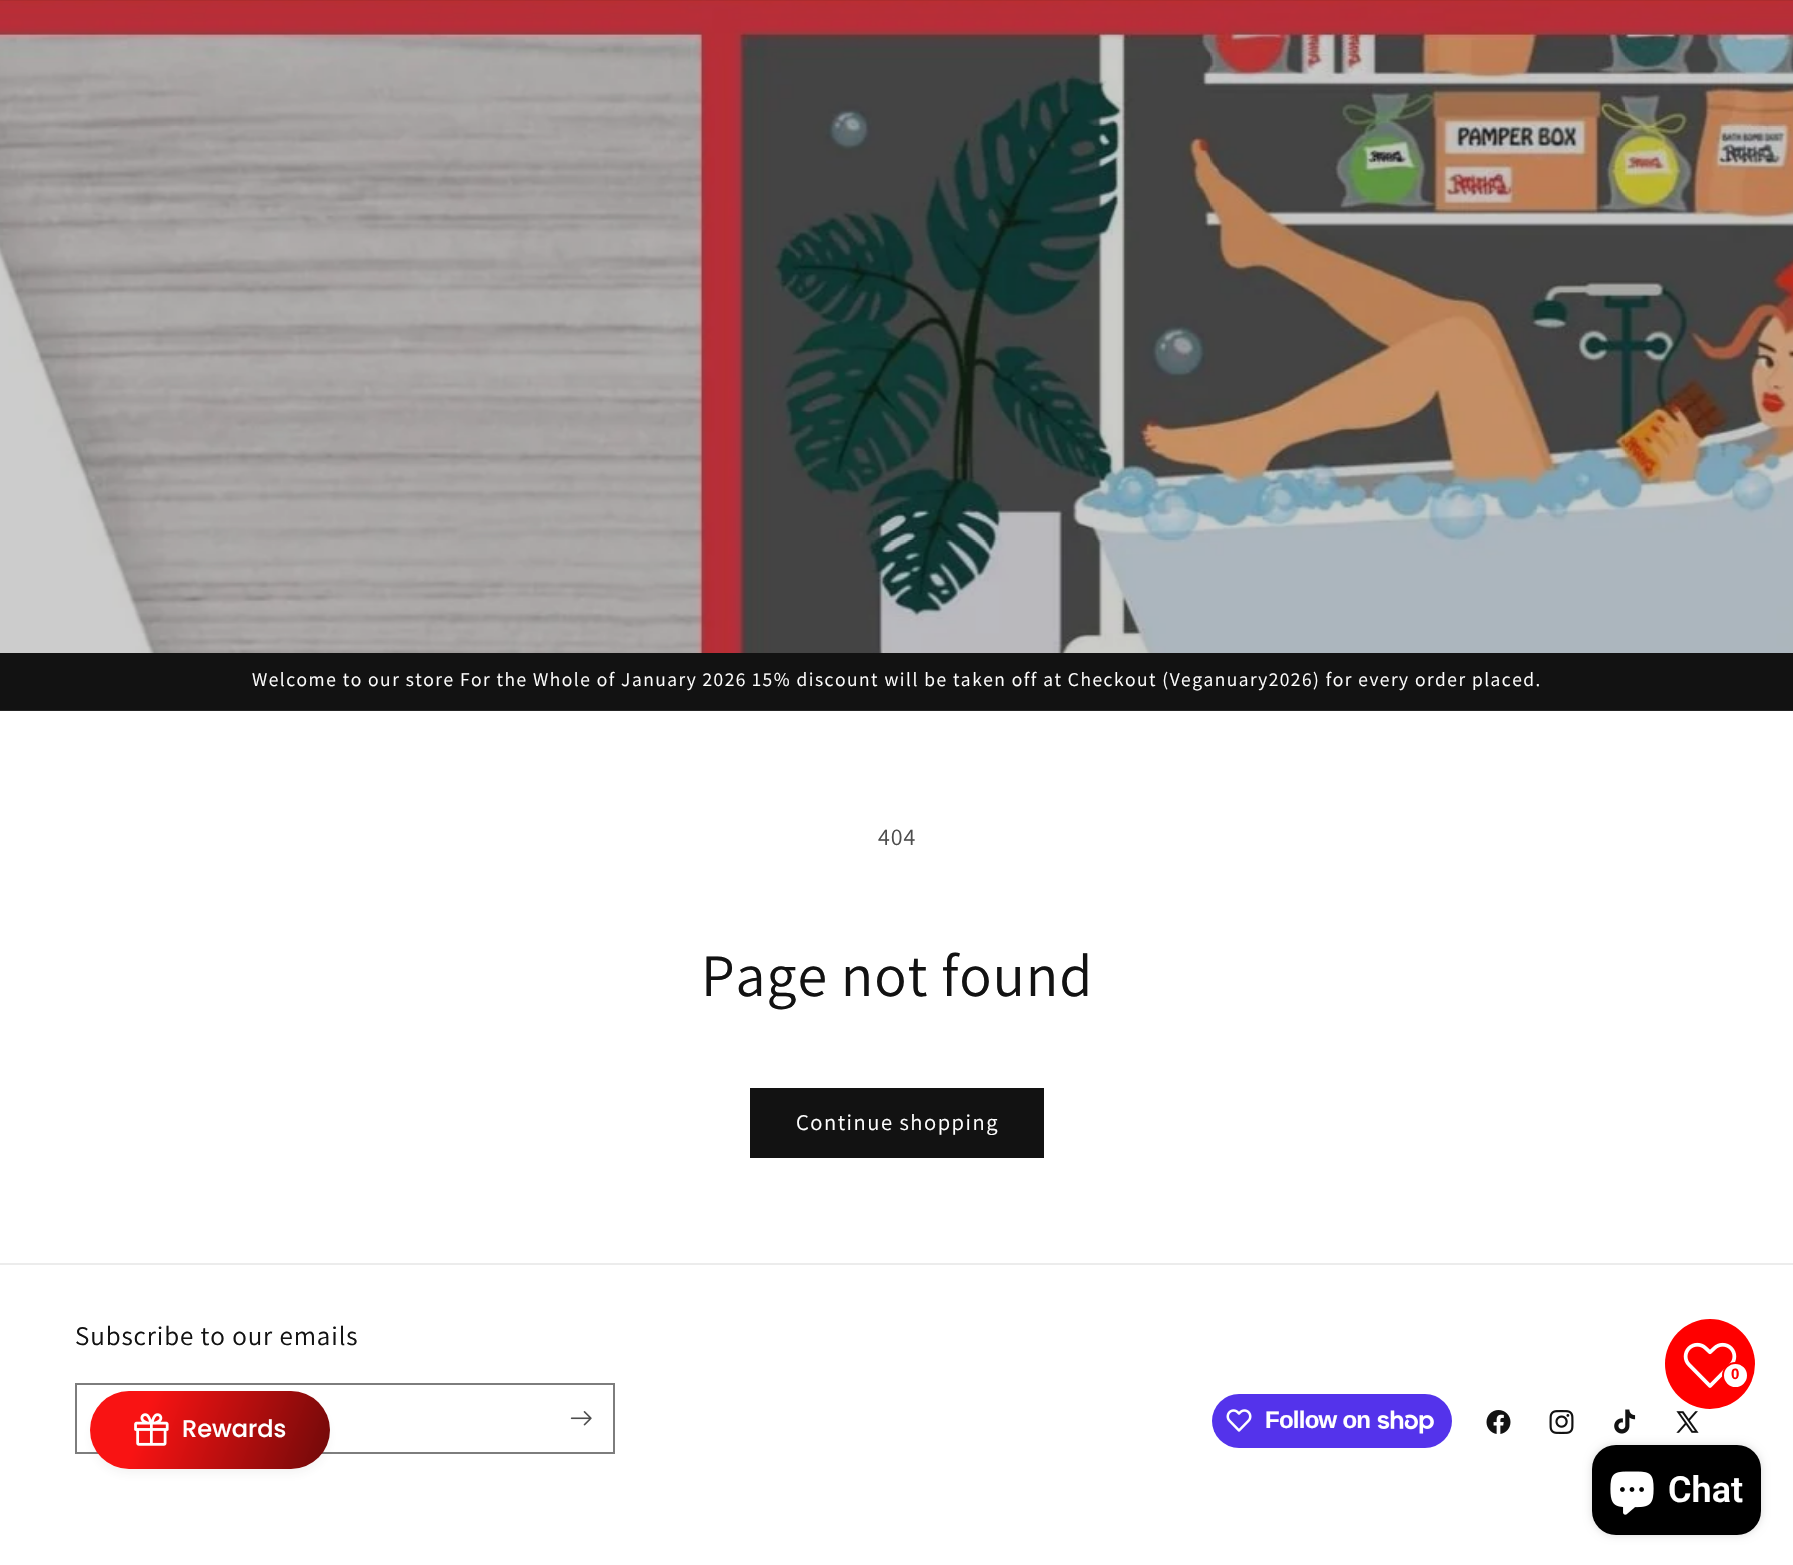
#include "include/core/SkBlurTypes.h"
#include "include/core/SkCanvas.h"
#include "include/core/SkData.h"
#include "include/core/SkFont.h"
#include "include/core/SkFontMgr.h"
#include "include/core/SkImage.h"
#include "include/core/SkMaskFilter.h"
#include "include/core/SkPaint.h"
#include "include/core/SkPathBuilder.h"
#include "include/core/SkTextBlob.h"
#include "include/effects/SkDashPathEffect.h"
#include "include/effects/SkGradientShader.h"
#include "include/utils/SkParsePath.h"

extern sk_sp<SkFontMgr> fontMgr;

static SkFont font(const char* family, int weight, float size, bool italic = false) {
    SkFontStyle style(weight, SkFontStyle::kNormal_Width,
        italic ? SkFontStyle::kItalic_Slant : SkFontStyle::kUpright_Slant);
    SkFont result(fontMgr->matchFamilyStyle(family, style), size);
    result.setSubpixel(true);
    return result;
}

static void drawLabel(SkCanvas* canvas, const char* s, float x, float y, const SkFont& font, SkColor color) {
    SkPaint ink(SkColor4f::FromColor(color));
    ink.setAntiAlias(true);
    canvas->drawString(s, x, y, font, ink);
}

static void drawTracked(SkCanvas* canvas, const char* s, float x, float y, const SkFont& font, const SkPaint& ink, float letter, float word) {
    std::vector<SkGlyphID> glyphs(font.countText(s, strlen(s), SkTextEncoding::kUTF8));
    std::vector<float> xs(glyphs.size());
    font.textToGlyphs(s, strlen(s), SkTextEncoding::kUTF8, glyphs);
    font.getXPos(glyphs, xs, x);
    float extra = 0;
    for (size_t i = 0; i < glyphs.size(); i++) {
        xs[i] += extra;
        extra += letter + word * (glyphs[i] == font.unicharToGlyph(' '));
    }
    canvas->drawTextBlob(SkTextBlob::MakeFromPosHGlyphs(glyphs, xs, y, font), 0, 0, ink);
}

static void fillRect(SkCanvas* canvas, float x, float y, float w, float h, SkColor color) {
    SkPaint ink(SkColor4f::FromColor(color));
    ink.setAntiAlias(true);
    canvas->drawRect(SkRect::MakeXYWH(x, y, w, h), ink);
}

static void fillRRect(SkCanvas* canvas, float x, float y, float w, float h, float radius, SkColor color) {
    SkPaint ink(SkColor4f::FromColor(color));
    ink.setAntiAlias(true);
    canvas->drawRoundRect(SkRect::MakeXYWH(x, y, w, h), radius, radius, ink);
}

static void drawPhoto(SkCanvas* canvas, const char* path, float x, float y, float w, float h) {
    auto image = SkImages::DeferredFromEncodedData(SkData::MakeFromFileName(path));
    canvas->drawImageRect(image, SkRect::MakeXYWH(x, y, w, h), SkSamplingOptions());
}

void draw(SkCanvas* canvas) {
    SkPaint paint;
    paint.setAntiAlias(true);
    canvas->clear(0xFFFFFFFF);
    drawPhoto(canvas, "assets/img1.png", 0, 0, 1793, 653);
    fillRect(canvas, 0, 0, 1793, 1, 0x14121212);
    fillRect(canvas, 0, 653, 1793, 57, 0xFF121212);
    fillRect(canvas, 0, 710, 1793, 1, 0xFF252525);
    SkFont font1 = font("Assistant", 400, 19.5f);
    paint.setColor(0xFFFFFFFF);
    drawTracked(canvas, "Welcome to our store For the Whole of January 2026 15% discount will be taken off at Checkout (Veganuary2026) for every order placed.", 252, 686, font1, paint, 1.5f, 0);
    SkFont font2 = font("Assistant", 400, 24);
    paint.setColor(0xFF4D4D4D);
    drawTracked(canvas, "404", 878, 845, font2, paint, 0.9f, 0);
    SkFont font3 = font("Assistant", 400, 60);
    paint.setColor(0xFF121212);
    drawTracked(canvas, "Page not found", 701, 996, font3, paint, 0.9f, 0);
    fillRect(canvas, 750, 1088, 294, 70, 0xFF121212);
    SkFont font4 = font("Assistant", 400, 22.5f);
    paint.setColor(0xFFFFFFFF);
    drawTracked(canvas, "Continue shopping", 796, 1130, font4, paint, 1.5f, 0);
    fillRect(canvas, 0, 1263, 1793, 2, 0xFFECECEC);
    SkFont font5 = font("Assistant", 400, 27);
    paint.setColor(0xFF121212);
    drawTracked(canvas, "Subscribe to our emails", 75, 1345, font5, paint, 0.9f, 0);
    paint.setStroke(true);
    paint.setStrokeWidth(2);
    paint.setColor(0xFF7D7D7D);
    canvas->drawRect(SkRect::MakeXYWH(76, 1384, 538, 69), paint);
    drawPhoto(canvas, "assets/img2.png", 570, 1411, 22, 15);
    fillRRect(canvas, 1212, 1394, 240, 54, 27, 0xFF5433EB);
    drawPhoto(canvas, "assets/img3.png", 1226, 1409, 26, 23);
    SkFont font6 = font("Liberation Sans", 700, 24);
    paint.setStroke(false);
    paint.setColor(0xFFFFFFFF);
    drawTracked(canvas, "Follow on", 1265, 1428, font6, paint, -0.75f, 0);
    drawPhoto(canvas, "assets/img4.png", 1377, 1410, 57, 24);
    drawPhoto(canvas, "assets/img5.png", 1486, 1410, 25, 24);
    drawPhoto(canvas, "assets/img6.png", 1549, 1410, 25, 24);
    drawPhoto(canvas, "assets/img7.png", 1614, 1409, 22, 25);
    drawPhoto(canvas, "assets/img8.png", 1676, 1411, 23, 22);
    paint.setColor(0xFFFF0000);
    canvas->drawCircle(1710, 1364, 45, paint);
    drawPhoto(canvas, "assets/img9.png", 1683, 1342, 54, 46);
    paint.setColor(0xFFFFFFFF);
    canvas->drawCircle(1735.5f, 1375.5f, 12.5f, paint);
    paint.setStroke(true);
    paint.setColor(0xFFFF0000);
    canvas->drawCircle(1735.5f, 1375.5f, 12.5f, paint);
    SkFont font7 = font("Liberation Sans", 700, 15);
    drawLabel(canvas, "0", 1731, 1379, font7, 0xFFFF0000);
    paint.setStroke(false);
    paint.setColor(0x14444444);
    paint.setMaskFilter(SkMaskFilter::MakeBlur(kNormal_SkBlurStyle, 6));
    canvas->drawRoundRect(SkRect::MakeXYWH(93, 1400, 234, 72), 36, 36, paint);
    paint.setMaskFilter(nullptr);
    {
        const SkColor colors[] = {0xFFF91313, 0xFF260404};
        const float stops[] = {0.17f, 1};
        const SkPoint ends[] = {{91, 1387}, {424, 1506}};
        paint.setShader(SkGradientShader::MakeLinear(ends, colors, stops, 2, SkTileMode::kClamp));
        paint.setAlpha(255);
    }
    canvas->drawRoundRect(SkRect::MakeXYWH(90, 1391, 240, 78), 39, 39, paint);
    drawPhoto(canvas, "assets/img10.png", 134, 1413, 35, 33);
    SkFont font8 = font("Poppins", 500, 24);
    drawLabel(canvas, "Rewards", 182, 1437, font8, 0xFFFFFFFF);
    paint.setShader(nullptr);
    paint.setColor(0x26000000);
    paint.setMaskFilter(SkMaskFilter::MakeBlur(kNormal_SkBlurStyle, 4));
    canvas->drawRoundRect(SkRect::MakeXYWH(1592, 1445, 169, 90), 24, 24, paint);
    paint.setMaskFilter(nullptr);
    fillRRect(canvas, 1592, 1445, 169, 90, 24, 0xFF000000);
    drawPhoto(canvas, "assets/img11.png", 1610, 1471, 44, 44);
    SkFont font9 = font("Roboto", 600, 36);
    drawLabel(canvas, "Chat", 1668, 1502, font9, 0xFFFFFFFF);
}
